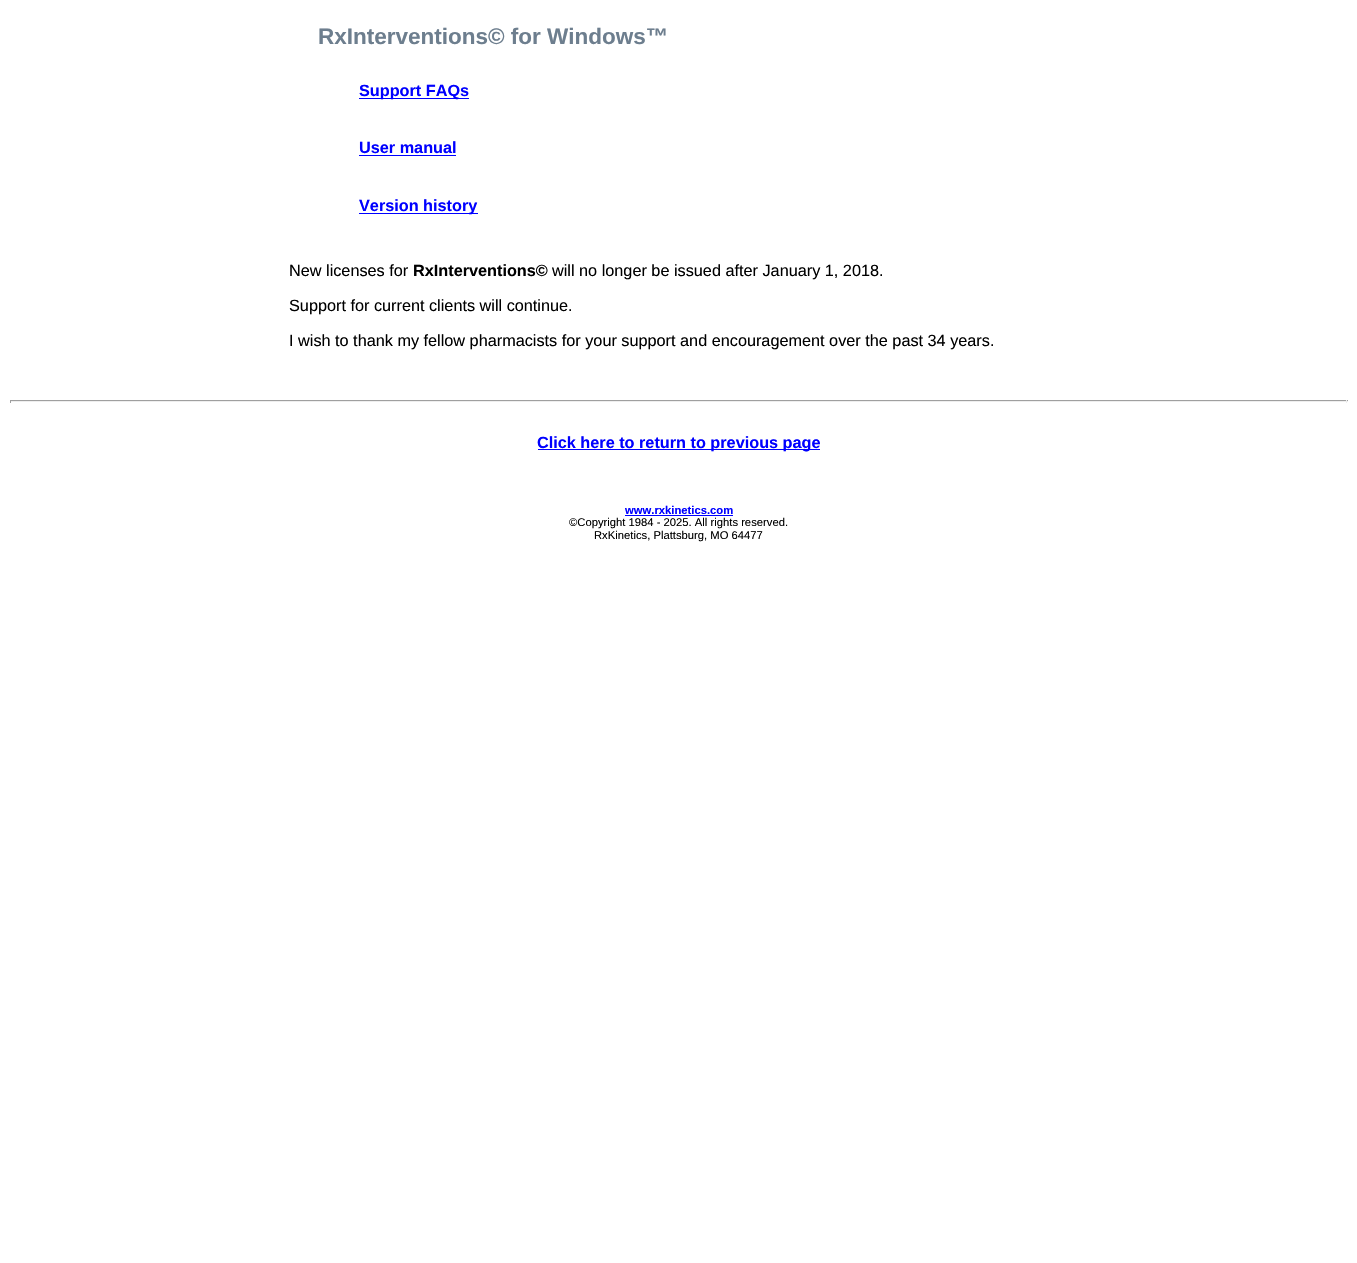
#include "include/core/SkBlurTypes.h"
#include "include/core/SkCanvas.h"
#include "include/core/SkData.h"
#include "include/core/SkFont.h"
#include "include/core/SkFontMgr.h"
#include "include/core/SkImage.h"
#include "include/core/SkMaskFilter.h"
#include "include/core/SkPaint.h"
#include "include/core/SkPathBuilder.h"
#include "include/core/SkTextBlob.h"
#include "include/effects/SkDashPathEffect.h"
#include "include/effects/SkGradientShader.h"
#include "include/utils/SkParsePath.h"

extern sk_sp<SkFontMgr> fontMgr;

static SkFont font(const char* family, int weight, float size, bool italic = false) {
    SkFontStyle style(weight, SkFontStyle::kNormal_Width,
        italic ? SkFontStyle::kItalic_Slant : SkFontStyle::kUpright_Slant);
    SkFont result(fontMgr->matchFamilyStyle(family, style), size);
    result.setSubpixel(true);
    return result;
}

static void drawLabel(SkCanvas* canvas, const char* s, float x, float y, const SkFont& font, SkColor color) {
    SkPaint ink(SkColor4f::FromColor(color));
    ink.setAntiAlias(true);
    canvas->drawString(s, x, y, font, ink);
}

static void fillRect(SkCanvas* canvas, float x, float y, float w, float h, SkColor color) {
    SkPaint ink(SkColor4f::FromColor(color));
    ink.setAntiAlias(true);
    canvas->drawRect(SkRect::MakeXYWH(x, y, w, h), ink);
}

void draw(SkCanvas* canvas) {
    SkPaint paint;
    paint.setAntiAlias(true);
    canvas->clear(0xFFFFFFFF);
    SkFont font1 = font("Liberation Sans", 700, 22.5f);
    drawLabel(canvas, "RxInterventions© for Windows™", 318, 44, font1, 0xFF6D7E8E);
    fillRect(canvas, 359, 98, 110, 1, 0xFF0000FF);
    SkFont font2 = font("Liberation Sans", 700, 16.25f);
    drawLabel(canvas, "Support FAQs", 359, 96, font2, 0xFF0000FF);
    drawLabel(canvas, "User manual", 359, 153, font2, 0xFF0000FF);
    fillRect(canvas, 359, 155, 97, 1, 0xFF0000FF);
    fillRect(canvas, 359, 213, 119, 1, 0xFF0000FF);
    drawLabel(canvas, "Version history", 359, 211, font2, 0xFF0000FF);
    SkFont font3 = font("Liberation Sans", 400, 16.25f);
    drawLabel(canvas, "New licenses for", 289, 276, font3, 0xFF000000);
    drawLabel(canvas, "RxInterventions©", 413, 276, font2, 0xFF000000);
    drawLabel(canvas, "will no longer be issued after January 1, 2018.", 552, 276, font3, 0xFF000000);
    drawLabel(canvas, "Support for current clients will continue.", 289, 311, font3, 0xFF000000);
    drawLabel(canvas, "I wish to thank my fellow pharmacists for your support and encouragement over the past 34 years.", 289, 346, font3, 0xFF000000);
    fillRect(canvas, 10, 400, 1338, 1, 0xFF9F9F9F);
    fillRect(canvas, 1346, 400, 1, 3, 0xFFEEEEEE);
    fillRect(canvas, 10, 401, 1338, 1, 0xFFEEEEEE);
    fillRect(canvas, 10, 400, 1, 3, 0xFF9F9F9F);
    fillRect(canvas, 538, 449, 282, 1, 0xFF0000FF);
    drawLabel(canvas, "Click here to return to previous page", 537, 448, font2, 0xFF0000FF);
    SkFont font4 = font("Liberation Sans", 700, 11.25f);
    drawLabel(canvas, "www.rxkinetics.com", 625, 514, font4, 0xFF0000FF);
    fillRect(canvas, 625, 515, 108, 1, 0xFF0000FF);
    SkFont font5 = font("Liberation Sans", 400, 11.25f);
    drawLabel(canvas, "©Copyright 1984 - 2025. All rights reserved.", 569, 526, font5, 0xFF000000);
    drawLabel(canvas, "RxKinetics, Plattsburg, MO 64477", 594, 539, font5, 0xFF000000);
}
